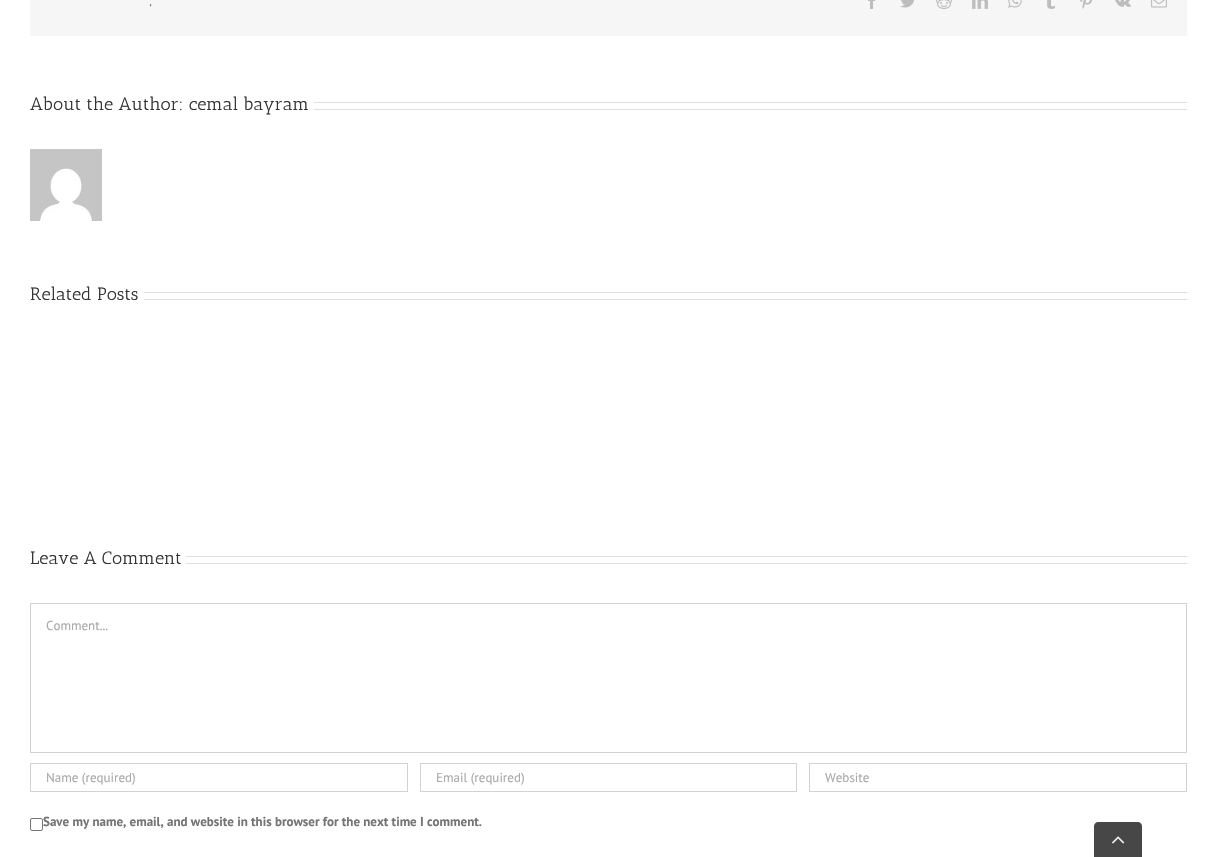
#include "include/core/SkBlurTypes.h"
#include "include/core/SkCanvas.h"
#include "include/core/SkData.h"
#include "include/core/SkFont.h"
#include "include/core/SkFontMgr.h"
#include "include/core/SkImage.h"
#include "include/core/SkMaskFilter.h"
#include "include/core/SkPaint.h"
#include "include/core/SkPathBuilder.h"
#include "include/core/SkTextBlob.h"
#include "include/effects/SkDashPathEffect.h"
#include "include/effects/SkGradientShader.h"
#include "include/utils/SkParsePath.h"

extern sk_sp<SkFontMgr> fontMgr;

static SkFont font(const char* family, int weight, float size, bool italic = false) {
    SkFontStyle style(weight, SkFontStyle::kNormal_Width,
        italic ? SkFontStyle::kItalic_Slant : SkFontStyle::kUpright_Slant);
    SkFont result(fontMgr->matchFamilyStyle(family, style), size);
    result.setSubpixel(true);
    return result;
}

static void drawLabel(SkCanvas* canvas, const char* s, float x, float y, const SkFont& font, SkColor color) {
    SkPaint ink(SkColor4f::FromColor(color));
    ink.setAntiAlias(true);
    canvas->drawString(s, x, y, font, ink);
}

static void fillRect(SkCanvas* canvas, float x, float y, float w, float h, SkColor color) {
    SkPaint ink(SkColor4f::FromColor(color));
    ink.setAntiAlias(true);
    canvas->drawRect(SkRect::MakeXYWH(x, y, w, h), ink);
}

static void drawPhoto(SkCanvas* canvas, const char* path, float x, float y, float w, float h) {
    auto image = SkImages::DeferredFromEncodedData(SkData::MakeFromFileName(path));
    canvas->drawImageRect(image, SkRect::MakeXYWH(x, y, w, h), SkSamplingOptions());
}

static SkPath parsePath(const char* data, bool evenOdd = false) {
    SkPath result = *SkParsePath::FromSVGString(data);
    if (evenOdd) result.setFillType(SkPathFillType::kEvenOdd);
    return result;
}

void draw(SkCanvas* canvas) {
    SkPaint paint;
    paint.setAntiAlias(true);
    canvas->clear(0xFFFFFFFF);
    fillRect(canvas, 30, 0, 1157, 36, 0xFFF6F6F6);
    SkFont font1 = font("Antic Slab", 400, 13);
    drawLabel(canvas, ",", 150, 5, font1, 0xFF333333);
    drawPhoto(canvas, "assets/img1.png", 868, 0, 8, 9);
    drawPhoto(canvas, "assets/img2.png", 900, 0, 14, 8);
    drawPhoto(canvas, "assets/img3.png", 936, 0, 16, 9);
    drawPhoto(canvas, "assets/img4.png", 972, 0, 16, 9);
    drawPhoto(canvas, "assets/img5.png", 1008, 0, 14, 8);
    drawPhoto(canvas, "assets/img6.png", 1047, 0, 8, 9);
    drawPhoto(canvas, "assets/img7.png", 1080, 0, 13, 9);
    drawPhoto(canvas, "assets/img8.png", 1115, 0, 16, 7);
    drawPhoto(canvas, "assets/img9.png", 1151, 0, 16, 8);
    SkFont font2 = font("Antic Slab", 400, 18);
    drawLabel(canvas, "About the Author: cemal bayram", 30, 110, font2, 0xFF333333);
    fillRect(canvas, 314, 102, 873, 1, 0xFFE0DEDE);
    fillRect(canvas, 314, 109, 873, 1, 0xFFE0DEDE);
    drawPhoto(canvas, "assets/img10.png", 30, 149, 72, 72);
    drawLabel(canvas, "Related Posts", 30, 300, font2, 0xFF333333);
    fillRect(canvas, 144, 292, 1043, 1, 0xFFE0DEDE);
    fillRect(canvas, 144, 299, 1043, 1, 0xFFE0DEDE);
    drawLabel(canvas, "Leave A Comment", 30, 564, font2, 0xFF333333);
    fillRect(canvas, 186, 556, 1001, 1, 0xFFE0DEDE);
    fillRect(canvas, 186, 563, 1001, 1, 0xFFE0DEDE);
    paint.setStroke(true);
    paint.setStrokeWidth(1);
    paint.setColor(0xFFD2D2D2);
    canvas->drawRect(SkRect::MakeXYWH(30.5f, 603.5f, 1156, 149), paint);
    SkFont font3 = font("PT Sans", 400, 13);
    drawLabel(canvas, "Comment...", 46, 630, font3, 0xFFAAA9A9);
    canvas->drawRect(SkRect::MakeXYWH(30.5f, 763.5f, 377, 28), paint);
    drawLabel(canvas, "Name (required)", 46, 782, font3, 0xFFAAA9A9);
    canvas->drawRect(SkRect::MakeXYWH(420.5f, 763.5f, 376, 28), paint);
    drawLabel(canvas, "Email (required)", 436, 782, font3, 0xFFAAA9A9);
    canvas->drawRect(SkRect::MakeXYWH(809.5f, 763.5f, 377, 28), paint);
    drawLabel(canvas, "Website", 825, 782, font3, 0xFFAAA9A9);
    paint.setColor(0xFF767676);
    canvas->drawRoundRect(SkRect::MakeXYWH(30.5f, 818.5f, 12, 12), 1.5f, 1.5f, paint);
    SkFont font4 = font("PT Sans", 700, 13);
    drawLabel(canvas, "Save my name, email, and website in this browser for the next time I comment.", 43, 826, font4, 0xFF747474);
    paint.setStroke(false);
    paint.setColor(0xFF474747);
    canvas->drawPath(parsePath("M1098 822H1138C1140 822 1142 824 1142 826V857H1094V826C1094 824 1096 822 1098 822Z"), paint);
    drawPhoto(canvas, "assets/img11.png", 1112, 836, 13, 8);
}
